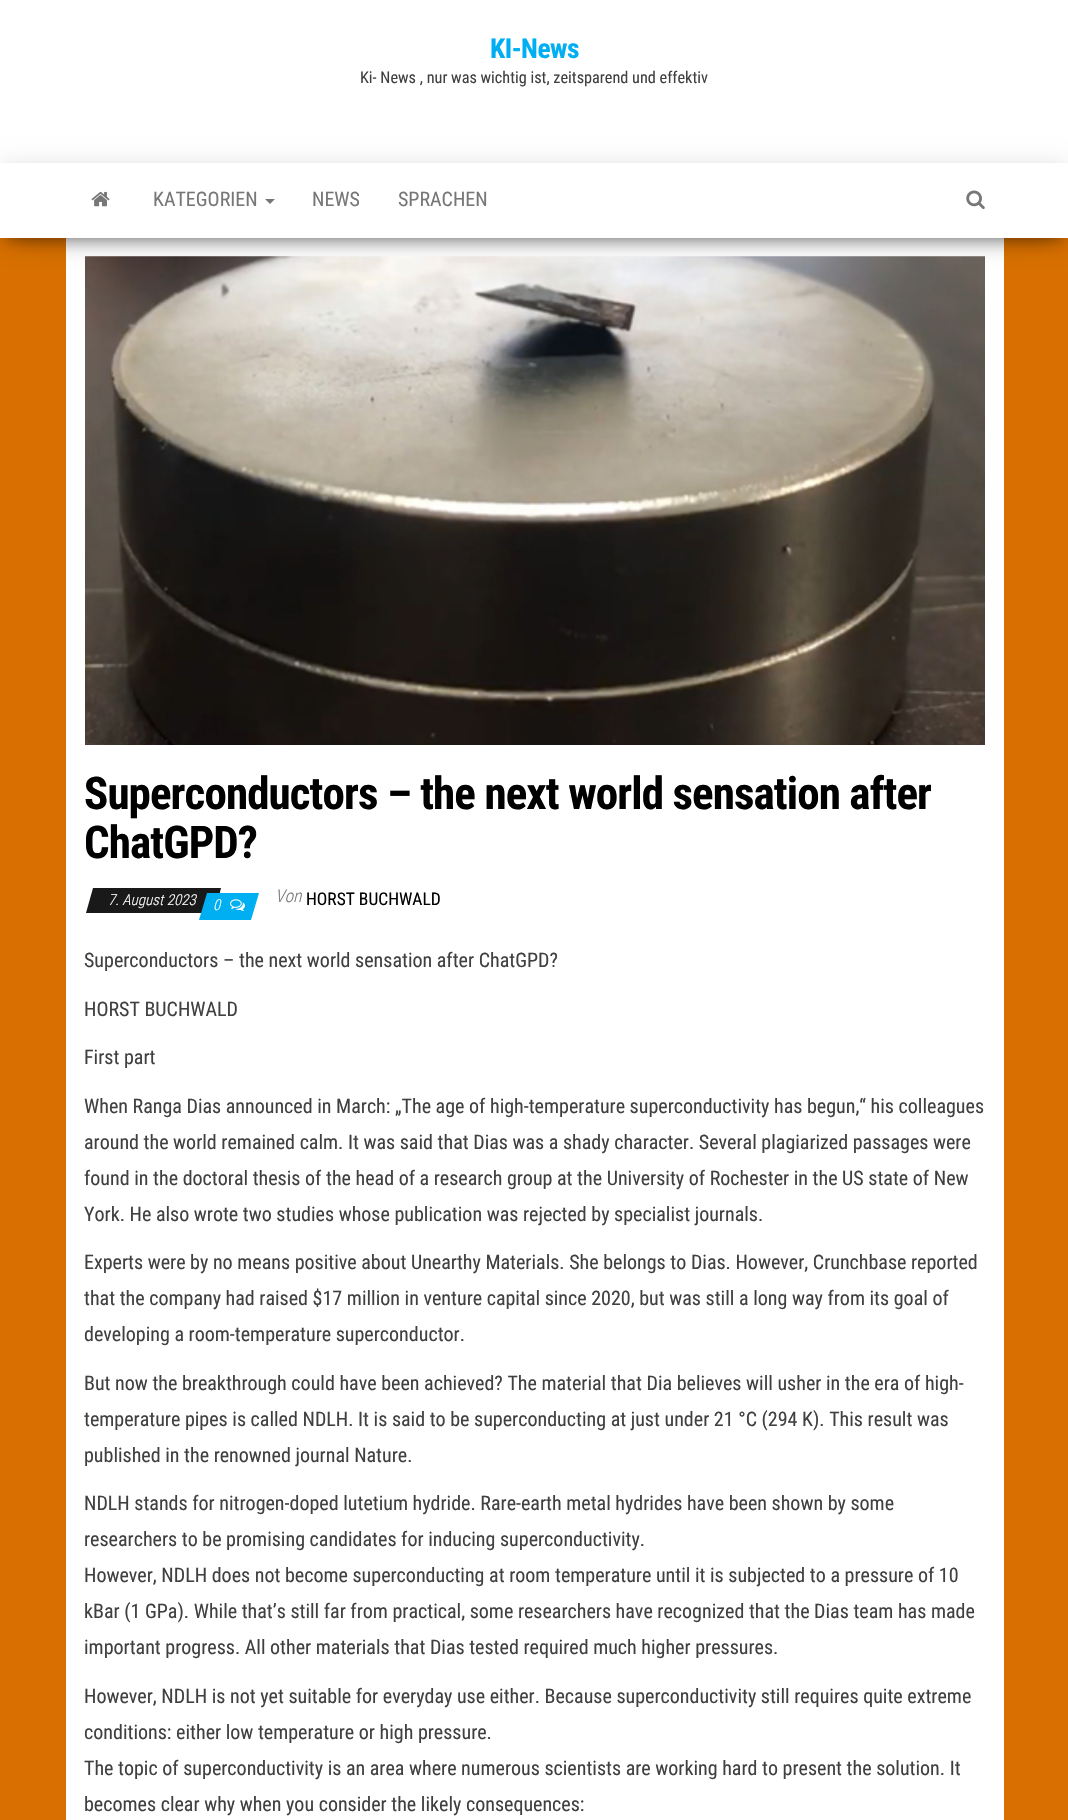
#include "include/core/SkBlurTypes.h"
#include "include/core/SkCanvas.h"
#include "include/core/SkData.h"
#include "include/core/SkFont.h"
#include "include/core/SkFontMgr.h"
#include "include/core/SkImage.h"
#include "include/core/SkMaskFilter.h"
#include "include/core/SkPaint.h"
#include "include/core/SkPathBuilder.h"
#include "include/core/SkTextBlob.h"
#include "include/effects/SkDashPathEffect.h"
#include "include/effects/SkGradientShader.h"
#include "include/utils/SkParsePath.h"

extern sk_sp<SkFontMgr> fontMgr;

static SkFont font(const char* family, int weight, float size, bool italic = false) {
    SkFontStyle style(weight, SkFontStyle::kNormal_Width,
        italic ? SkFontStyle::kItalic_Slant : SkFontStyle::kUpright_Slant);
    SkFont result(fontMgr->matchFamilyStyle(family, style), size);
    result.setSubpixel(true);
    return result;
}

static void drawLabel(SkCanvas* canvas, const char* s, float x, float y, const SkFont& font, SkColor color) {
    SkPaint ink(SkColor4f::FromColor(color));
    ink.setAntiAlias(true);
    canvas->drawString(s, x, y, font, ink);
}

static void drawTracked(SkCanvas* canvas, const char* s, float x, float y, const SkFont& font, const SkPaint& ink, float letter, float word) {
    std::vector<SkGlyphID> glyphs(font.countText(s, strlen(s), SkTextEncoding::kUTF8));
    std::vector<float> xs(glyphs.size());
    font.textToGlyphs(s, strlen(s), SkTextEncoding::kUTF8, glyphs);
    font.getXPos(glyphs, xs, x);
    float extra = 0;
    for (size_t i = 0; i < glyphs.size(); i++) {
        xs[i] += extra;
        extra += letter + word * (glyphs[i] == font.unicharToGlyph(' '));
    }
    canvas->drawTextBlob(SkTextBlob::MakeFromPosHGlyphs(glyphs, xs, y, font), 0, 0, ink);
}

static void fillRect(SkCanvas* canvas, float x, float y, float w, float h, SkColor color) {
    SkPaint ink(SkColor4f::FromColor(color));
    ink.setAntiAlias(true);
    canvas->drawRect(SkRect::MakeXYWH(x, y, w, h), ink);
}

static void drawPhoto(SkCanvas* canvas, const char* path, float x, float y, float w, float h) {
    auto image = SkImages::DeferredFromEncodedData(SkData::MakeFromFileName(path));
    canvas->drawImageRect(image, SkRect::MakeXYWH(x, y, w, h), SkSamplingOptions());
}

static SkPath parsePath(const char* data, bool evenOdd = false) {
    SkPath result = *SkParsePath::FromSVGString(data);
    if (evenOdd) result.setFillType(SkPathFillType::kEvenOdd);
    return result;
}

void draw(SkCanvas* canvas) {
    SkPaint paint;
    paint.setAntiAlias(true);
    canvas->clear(0xFFD86F00);
    fillRect(canvas, 0, 0, 1068, 163, 0xFFFFFFFF);
    SkFont font1 = font("Roboto Condensed", 700, 27.5f);
    paint.setColor(0xFF00AFF2);
    drawTracked(canvas, "KI-News", 490, 58, font1, paint, -0.5f, 0);
    SkFont font2 = font("Roboto Condensed", 400, 16.25f);
    drawLabel(canvas, "Ki- News , nur was wichtig ist, zeitsparend und effektiv", 360, 83, font2, 0xFF404040);
    fillRect(canvas, 66, 238, 938, 1582, 0xFFFFFFFF);
    paint.setColor(0x33000000);
    paint.setMaskFilter(SkMaskFilter::MakeBlur(kNormal_SkBlurStyle, 6));
    canvas->drawRect(SkRect::MakeXYWH(6, 179, 1057, 62), paint);
    paint.setMaskFilter(nullptr);
    paint.setColor(0x1F000000);
    paint.setMaskFilter(SkMaskFilter::MakeBlur(kNormal_SkBlurStyle, 12.5f));
    canvas->drawRect(SkRect::MakeXYWH(0, 166, 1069, 75), paint);
    paint.setMaskFilter(nullptr);
    paint.setColor(0x6B000000);
    paint.setMaskFilter(SkMaskFilter::MakeBlur(kNormal_SkBlurStyle, 12.5f));
    canvas->drawRect(SkRect::MakeXYWH(15, 190, 1039, 45), paint);
    paint.setMaskFilter(nullptr);
    fillRect(canvas, 0, 163, 1068, 75, 0xFFFFFFFF);
    drawPhoto(canvas, "assets/img1.png", 91, 191, 19, 16);
    SkFont font3 = font("Roboto Condensed", 400, 20);
    drawLabel(canvas, "KATEGORIEN", 153, 206, font3, 0xFF777777);
    paint.setColor(0xFF777777);
    canvas->drawPath(parsePath("M265 199H275L270 204Z"), paint);
    drawLabel(canvas, "NEWS", 312, 206, font3, 0xFF777777);
    drawLabel(canvas, "SPRACHEN", 398, 206, font3, 0xFF777777);
    drawPhoto(canvas, "assets/img2.png", 966, 190, 19, 20);
    drawPhoto(canvas, "assets/img3.png", 85, 256, 900, 489);
    SkFont font4 = font("Roboto Condensed", 700, 45);
    paint.setColor(0xFF000000);
    drawTracked(canvas, "Superconductors – the next world sensation after", 84, 809, font4, paint, -0.9f, 0);
    drawTracked(canvas, "ChatGPD?", 84, 858, font4, paint, -0.9f, 0);
    paint.setColor(0xFF191919);
    canvas->drawPath(parsePath("M93 888H221L215 913H86Z"), paint);
    SkFont font5 = font("Roboto Condensed", 300, 15, true);
    drawLabel(canvas, "7. August 2023", 108, 905, font5, 0xFFFFFFFF);
    paint.setColor(0xFF00AFF2);
    canvas->drawPath(parsePath("M207 893H259L251 920H199Z"), paint);
    drawLabel(canvas, "0", 213, 910, font5, 0xFFFFFFFF);
    drawPhoto(canvas, "assets/img4.png", 230, 899, 15, 12);
    SkFont font6 = font("Roboto Condensed", 300, 17.5f, true);
    drawLabel(canvas, "Von", 275, 902, font6, 0xFF777777);
    SkFont font7 = font("Roboto Condensed", 400, 17.5f);
    drawLabel(canvas, "HORST BUCHWALD", 306, 905, font7, 0xFF000000);
    drawLabel(canvas, "Superconductors – the next world sensation after ChatGPD?", 84, 967, font3, 0xFF404040);
    drawLabel(canvas, "HORST BUCHWALD", 84, 1016, font3, 0xFF404040);
    drawLabel(canvas, "First part", 84, 1064, font3, 0xFF404040);
    drawLabel(canvas, "When Ranga Dias announced in March: „The age of high-temperature superconductivity has begun,“ his colleagues", 84, 1113, font3, 0xFF404040);
    drawLabel(canvas, "around the world remained calm. It was said that Dias was a shady character. Several plagiarized passages were", 84, 1149, font3, 0xFF404040);
    drawLabel(canvas, "found in the doctoral thesis of the head of a research group at the University of Rochester in the US state of New", 84, 1185, font3, 0xFF404040);
    drawLabel(canvas, "York. He also wrote two studies whose publication was rejected by specialist journals.", 84, 1221, font3, 0xFF404040);
    drawLabel(canvas, "Experts were by no means positive about Unearthy Materials. She belongs to Dias. However, Crunchbase reported", 84, 1269, font3, 0xFF404040);
    drawLabel(canvas, "that the company had raised $17 million in venture capital since 2020, but was still a long way from its goal of", 84, 1305, font3, 0xFF404040);
    drawLabel(canvas, "developing a room-temperature superconductor.", 84, 1341, font3, 0xFF404040);
    drawLabel(canvas, "But now the breakthrough could have been achieved? The material that Dia believes will usher in the era of high-", 84, 1390, font3, 0xFF404040);
    drawLabel(canvas, "temperature pipes is called NDLH. It is said to be superconducting at just under 21 °C (294 K). This result was", 84, 1426, font3, 0xFF404040);
    drawLabel(canvas, "published in the renowned journal Nature.", 84, 1462, font3, 0xFF404040);
    drawLabel(canvas, "NDLH stands for nitrogen-doped lutetium hydride. Rare-earth metal hydrides have been shown by some", 84, 1510, font3, 0xFF404040);
    drawLabel(canvas, "researchers to be promising candidates for inducing superconductivity.", 84, 1546, font3, 0xFF404040);
    drawLabel(canvas, "However, NDLH does not become superconducting at room temperature until it is subjected to a pressure of 10", 84, 1582, font3, 0xFF404040);
    drawLabel(canvas, "kBar (1 GPa). While that’s still far from practical, some researchers have recognized that the Dias team has made", 84, 1618, font3, 0xFF404040);
    drawLabel(canvas, "important progress. All other materials that Dias tested required much higher pressures.", 84, 1654, font3, 0xFF404040);
    drawLabel(canvas, "However, NDLH is not yet suitable for everyday use either. Because superconductivity still requires quite extreme", 84, 1703, font3, 0xFF404040);
    drawLabel(canvas, "conditions: either low temperature or high pressure.", 84, 1739, font3, 0xFF404040);
    drawLabel(canvas, "The topic of superconductivity is an area where numerous scientists are working hard to present the solution. It", 84, 1775, font3, 0xFF404040);
    drawLabel(canvas, "becomes clear why when you consider the likely consequences:", 84, 1811, font3, 0xFF404040);
}
